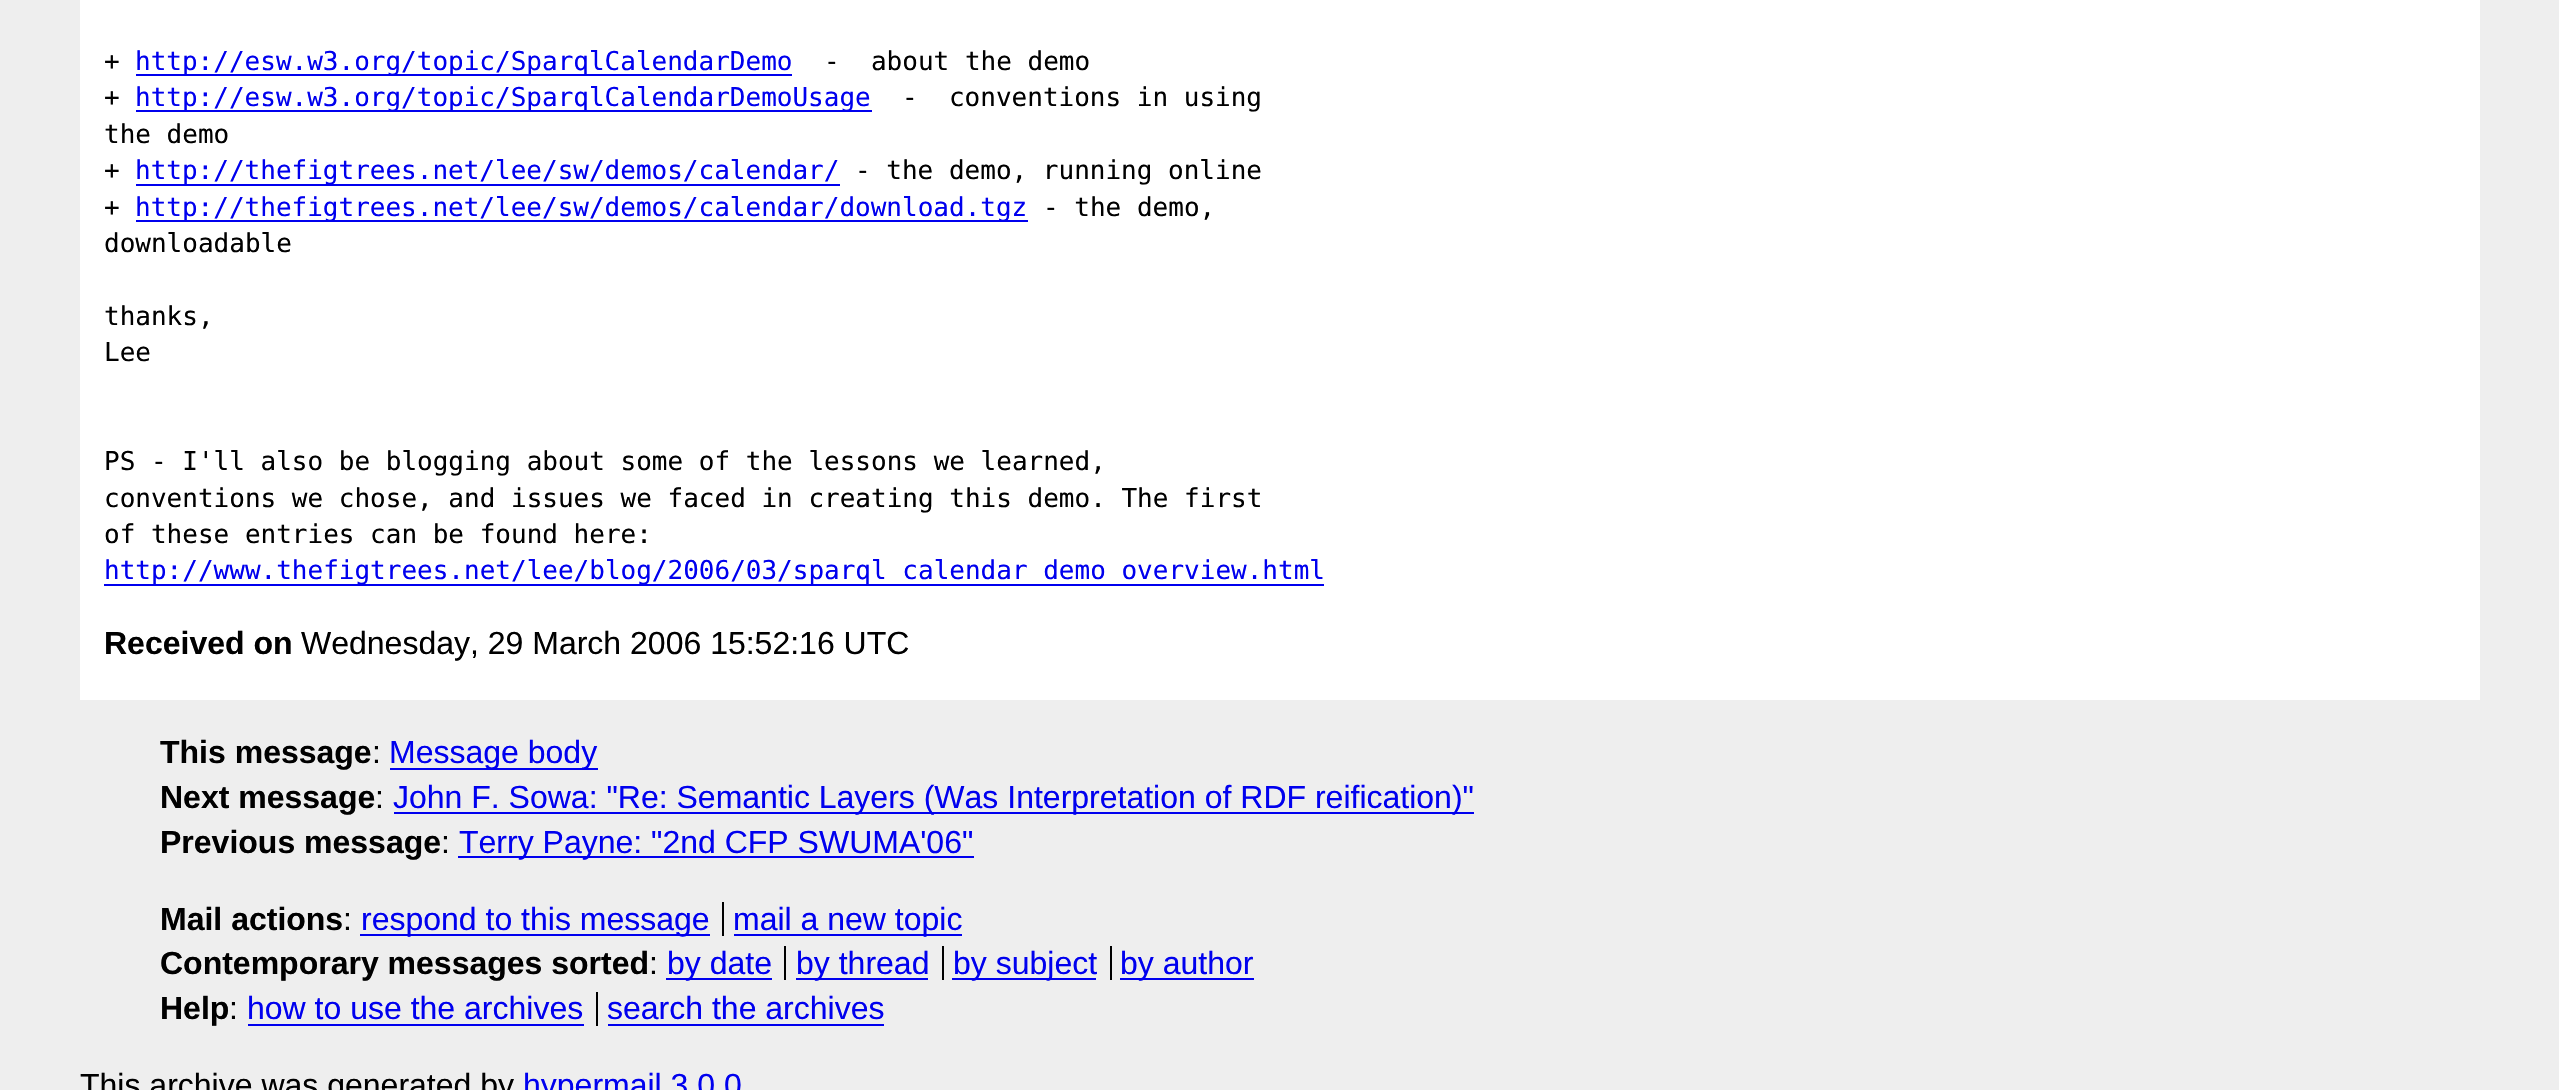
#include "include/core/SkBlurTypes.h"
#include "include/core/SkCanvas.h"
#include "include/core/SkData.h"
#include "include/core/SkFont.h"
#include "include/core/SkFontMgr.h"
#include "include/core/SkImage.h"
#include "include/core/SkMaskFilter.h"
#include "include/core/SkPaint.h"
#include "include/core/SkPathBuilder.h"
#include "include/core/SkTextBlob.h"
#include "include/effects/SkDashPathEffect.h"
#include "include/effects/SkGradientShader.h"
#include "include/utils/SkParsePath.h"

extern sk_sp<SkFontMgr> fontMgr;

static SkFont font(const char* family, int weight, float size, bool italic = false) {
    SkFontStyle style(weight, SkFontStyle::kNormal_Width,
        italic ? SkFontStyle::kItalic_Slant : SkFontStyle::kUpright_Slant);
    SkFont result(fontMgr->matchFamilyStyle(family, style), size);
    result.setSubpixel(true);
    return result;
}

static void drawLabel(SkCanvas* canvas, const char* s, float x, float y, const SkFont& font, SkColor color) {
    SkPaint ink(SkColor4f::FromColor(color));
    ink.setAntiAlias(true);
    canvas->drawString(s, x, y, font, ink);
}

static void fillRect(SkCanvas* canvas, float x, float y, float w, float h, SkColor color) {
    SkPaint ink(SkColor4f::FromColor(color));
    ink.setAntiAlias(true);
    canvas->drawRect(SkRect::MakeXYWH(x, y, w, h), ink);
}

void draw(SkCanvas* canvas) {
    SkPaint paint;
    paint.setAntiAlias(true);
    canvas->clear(0xFFEEEEEE);
    fillRect(canvas, 80, 0, 2400, 700, 0xFFFFFFFF);
    SkFont font1 = font("DejaVu Sans Mono", 400, 26);
    drawLabel(canvas, "+", 104, 70, font1, 0xFF000000);
    fillRect(canvas, 136, 74, 656, 2, 0xFF0000EE);
    drawLabel(canvas, "http://esw.w3.org/topic/SparqlCalendarDemo", 135, 70, font1, 0xFF0000EE);
    drawLabel(canvas, "-  about the demo", 824, 70, font1, 0xFF000000);
    drawLabel(canvas, "+", 104, 106, font1, 0xFF000000);
    fillRect(canvas, 136, 110, 736, 2, 0xFF0000EE);
    drawLabel(canvas, "http://esw.w3.org/topic/SparqlCalendarDemoUsage", 135, 106, font1, 0xFF0000EE);
    drawLabel(canvas, "-  conventions in using", 902, 106, font1, 0xFF000000);
    drawLabel(canvas, "the demo", 104, 143, font1, 0xFF000000);
    drawLabel(canvas, "+", 104, 179, font1, 0xFF000000);
    fillRect(canvas, 136, 184, 704, 2, 0xFF0000EE);
    drawLabel(canvas, "http://thefigtrees.net/lee/sw/demos/calendar/", 135, 179, font1, 0xFF0000EE);
    drawLabel(canvas, "- the demo, running online", 855, 179, font1, 0xFF000000);
    drawLabel(canvas, "+", 104, 216, font1, 0xFF000000);
    fillRect(canvas, 136, 220, 892, 2, 0xFF0000EE);
    drawLabel(canvas, "http://thefigtrees.net/lee/sw/demos/calendar/download.tgz", 135, 216, font1, 0xFF0000EE);
    drawLabel(canvas, "- the demo,", 1043, 216, font1, 0xFF000000);
    drawLabel(canvas, "downloadable", 104, 252, font1, 0xFF000000);
    drawLabel(canvas, "thanks,", 104, 325, font1, 0xFF000000);
    drawLabel(canvas, "Lee", 104, 361, font1, 0xFF000000);
    drawLabel(canvas, "PS - I'll also be blogging about some of the lessons we learned,", 104, 470, font1, 0xFF000000);
    drawLabel(canvas, "conventions we chose, and issues we faced in creating this demo. The first", 104, 507, font1, 0xFF000000);
    drawLabel(canvas, "of these entries can be found here:", 104, 543, font1, 0xFF000000);
    fillRect(canvas, 104, 584, 1220, 2, 0xFF0000EE);
    drawLabel(canvas, "http://www.thefigtrees.net/lee/blog/2006/03/sparql_calendar_demo_overview.html", 104, 579, font1, 0xFF0000EE);
    SkFont font2 = font("Liberation Sans", 700, 32);
    drawLabel(canvas, "Received on", 104, 654, font2, 0xFF000000);
    SkFont font3 = font("Liberation Sans", 400, 32);
    drawLabel(canvas, "Wednesday, 29 March 2006 15:52:16 UTC", 301, 654, font3, 0xFF000000);
    drawLabel(canvas, "This message", 160, 763, font2, 0xFF000000);
    drawLabel(canvas, ":", 372, 763, font3, 0xFF000000);
    fillRect(canvas, 390, 768, 208, 2, 0xFF0000EE);
    drawLabel(canvas, "Message body", 389, 763, font3, 0xFF0000EE);
    drawLabel(canvas, "Next message", 160, 808, font2, 0xFF000000);
    drawLabel(canvas, ":", 375, 808, font3, 0xFF000000);
    fillRect(canvas, 394, 812, 1080, 2, 0xFF0000EE);
    drawLabel(canvas, "John F. Sowa: \"Re: Semantic Layers (Was Interpretation of RDF reification)\"", 393, 808, font3, 0xFF0000EE);
    drawLabel(canvas, "Previous message", 160, 853, font2, 0xFF000000);
    drawLabel(canvas, ":", 441, 853, font3, 0xFF000000);
    fillRect(canvas, 458, 856, 516, 2, 0xFF0000EE);
    drawLabel(canvas, "Terry Payne: \"2nd CFP SWUMA'06\"", 459, 853, font3, 0xFF0000EE);
    drawLabel(canvas, "Mail actions", 160, 930, font2, 0xFF000000);
    drawLabel(canvas, ":", 343, 930, font3, 0xFF000000);
    fillRect(canvas, 360, 934, 350, 2, 0xFF0000EE);
    drawLabel(canvas, "respond to this message", 361, 930, font3, 0xFF0000EE);
    fillRect(canvas, 734, 934, 228, 2, 0xFF0000EE);
    drawLabel(canvas, "mail a new topic", 733, 930, font3, 0xFF0000EE);
    fillRect(canvas, 722, 902, 2, 34, 0xFF000000);
    drawLabel(canvas, "Contemporary messages sorted", 160, 974, font2, 0xFF000000);
    drawLabel(canvas, ":", 649, 974, font3, 0xFF000000);
    fillRect(canvas, 666, 978, 106, 2, 0xFF0000EE);
    drawLabel(canvas, "by date", 667, 974, font3, 0xFF0000EE);
    fillRect(canvas, 796, 978, 132, 2, 0xFF0000EE);
    drawLabel(canvas, "by thread", 796, 974, font3, 0xFF0000EE);
    fillRect(canvas, 784, 946, 2, 34, 0xFF000000);
    fillRect(canvas, 952, 978, 144, 2, 0xFF0000EE);
    drawLabel(canvas, "by subject", 953, 974, font3, 0xFF0000EE);
    fillRect(canvas, 942, 946, 2, 34, 0xFF000000);
    fillRect(canvas, 1120, 978, 134, 2, 0xFF0000EE);
    drawLabel(canvas, "by author", 1120, 974, font3, 0xFF0000EE);
    fillRect(canvas, 1110, 946, 2, 34, 0xFF000000);
    drawLabel(canvas, "Help", 160, 1019, font2, 0xFF000000);
    drawLabel(canvas, ":", 229, 1019, font3, 0xFF000000);
    drawLabel(canvas, "how to use the archives", 247, 1019, font3, 0xFF0000EE);
    fillRect(canvas, 248, 1024, 336, 2, 0xFF0000EE);
    drawLabel(canvas, "search the archives", 607, 1019, font3, 0xFF0000EE);
    fillRect(canvas, 596, 992, 2, 34, 0xFF000000);
    fillRect(canvas, 608, 1024, 276, 2, 0xFF0000EE);
    drawLabel(canvas, "This archive was generated by", 80, 1096, font3, 0xFF000000);
    drawLabel(canvas, "hypermail 3.0.0", 523, 1096, font3, 0xFF0000EE);
}
